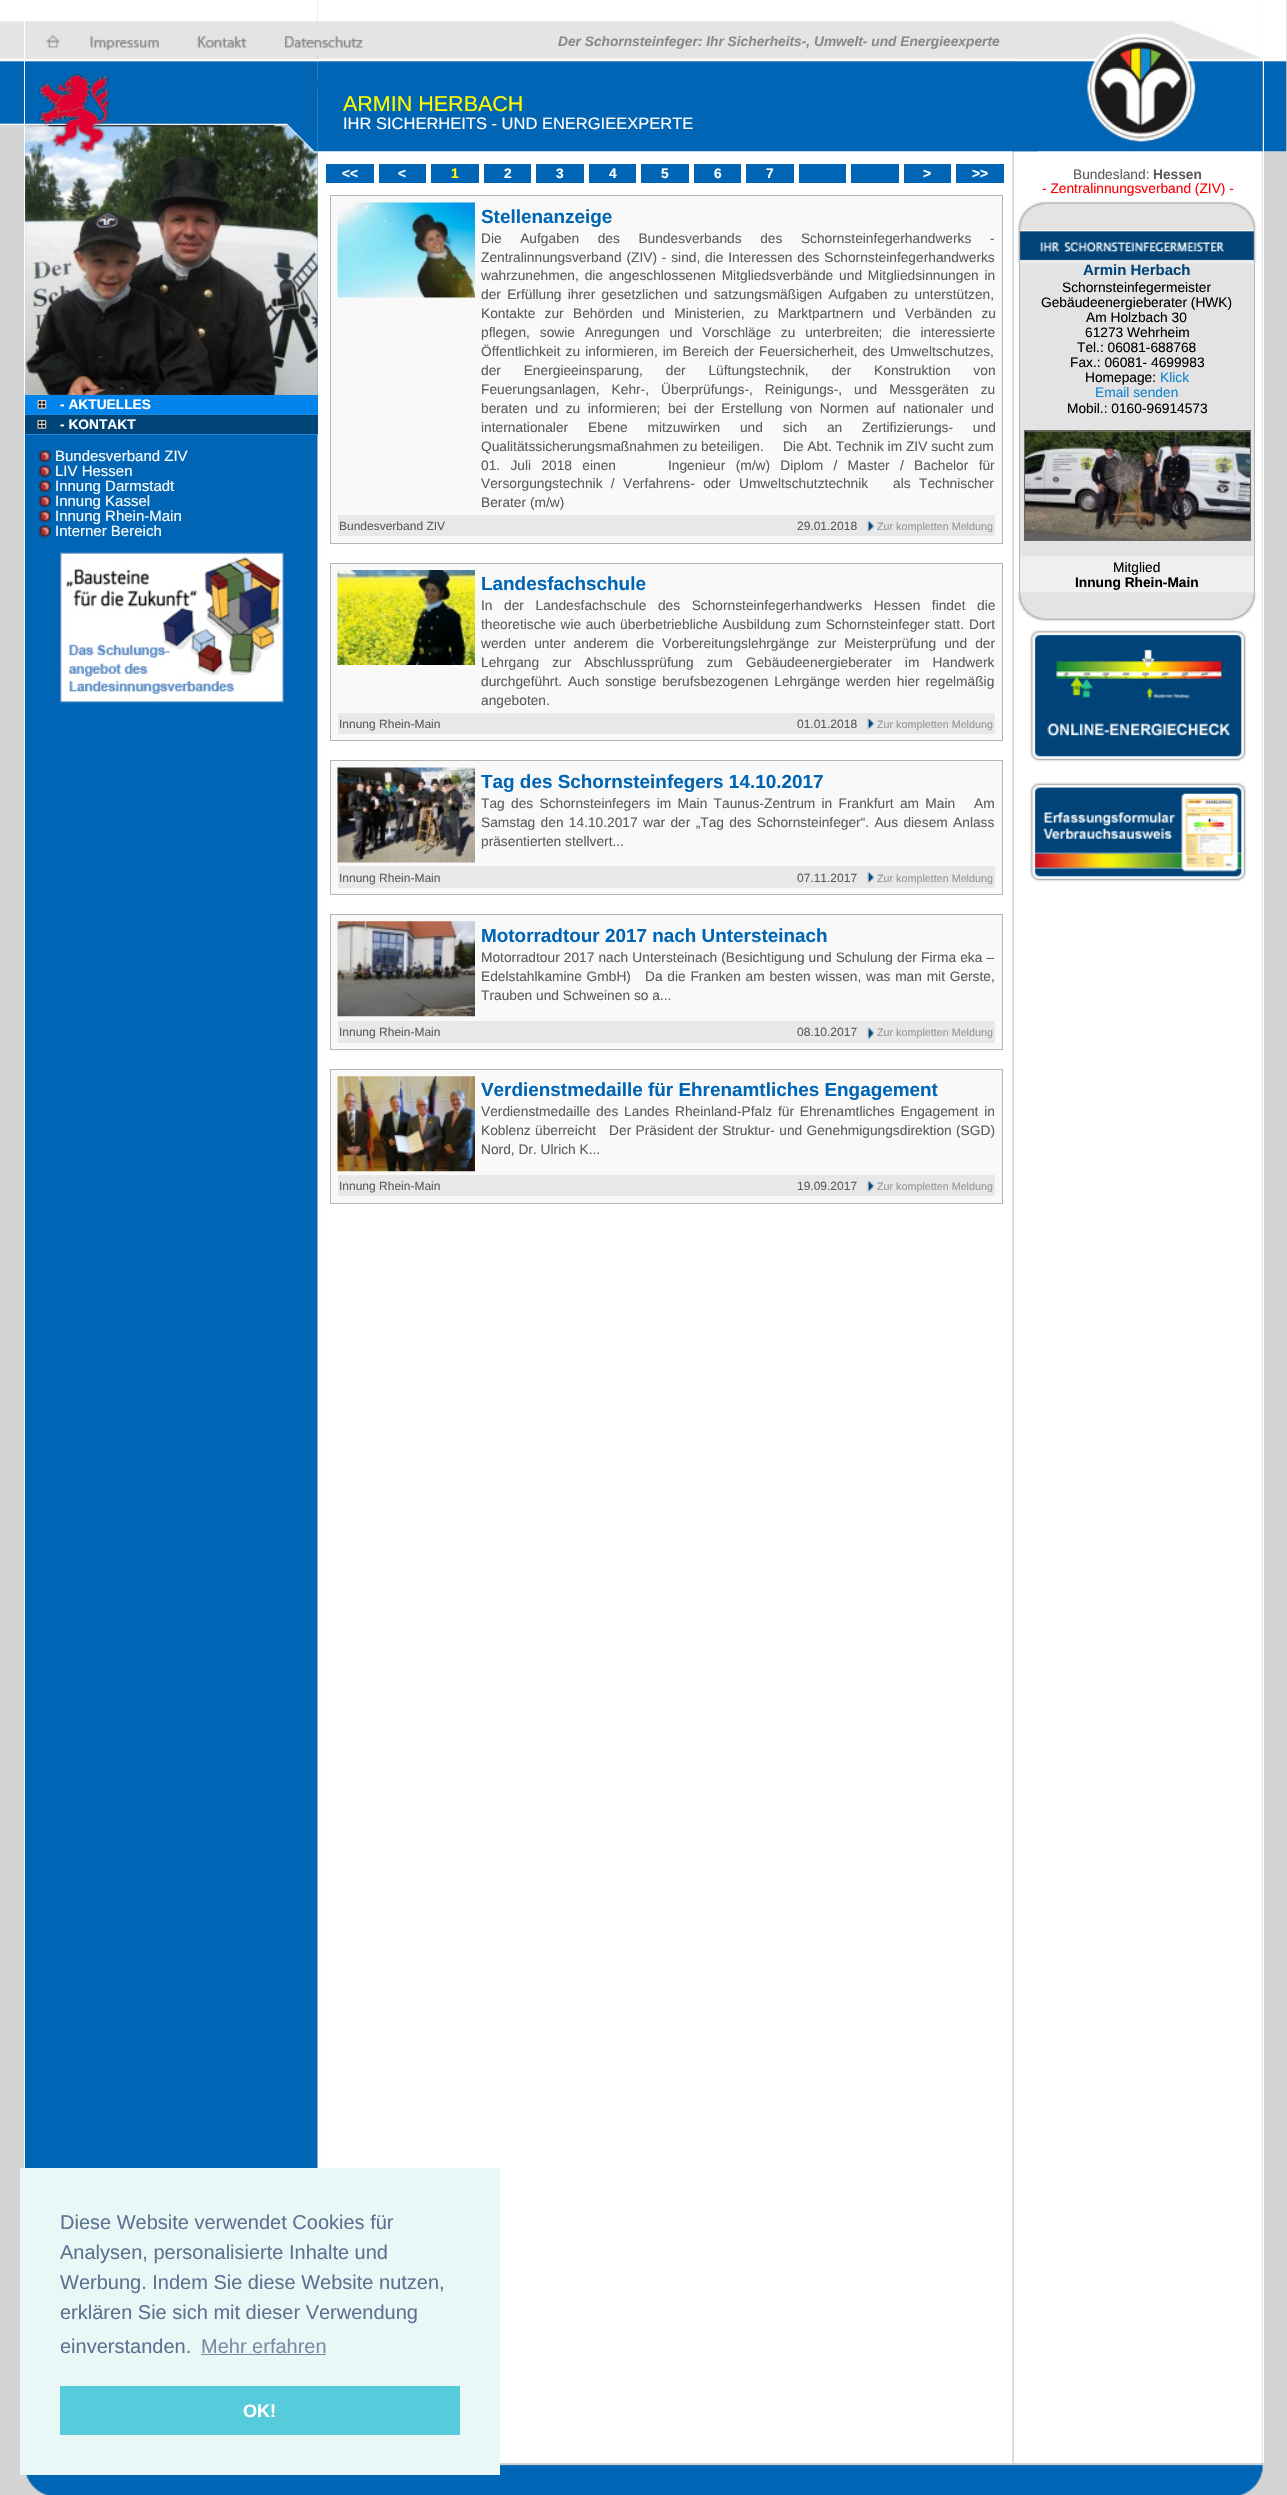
#include "include/core/SkBlurTypes.h"
#include "include/core/SkCanvas.h"
#include "include/core/SkData.h"
#include "include/core/SkFont.h"
#include "include/core/SkFontMgr.h"
#include "include/core/SkImage.h"
#include "include/core/SkMaskFilter.h"
#include "include/core/SkPaint.h"
#include "include/core/SkPathBuilder.h"
#include "include/core/SkTextBlob.h"
#include "include/effects/SkDashPathEffect.h"
#include "include/effects/SkGradientShader.h"
#include "include/utils/SkParsePath.h"

extern sk_sp<SkFontMgr> fontMgr;

static SkFont font(const char* family, int weight, float size, bool italic = false) {
    SkFontStyle style(weight, SkFontStyle::kNormal_Width,
        italic ? SkFontStyle::kItalic_Slant : SkFontStyle::kUpright_Slant);
    SkFont result(fontMgr->matchFamilyStyle(family, style), size);
    result.setSubpixel(true);
    return result;
}

static void drawLabel(SkCanvas* canvas, const char* s, float x, float y, const SkFont& font, SkColor color) {
    SkPaint ink(SkColor4f::FromColor(color));
    ink.setAntiAlias(true);
    canvas->drawString(s, x, y, font, ink);
}

static void drawTracked(SkCanvas* canvas, const char* s, float x, float y, const SkFont& font, const SkPaint& ink, float letter, float word) {
    std::vector<SkGlyphID> glyphs(font.countText(s, strlen(s), SkTextEncoding::kUTF8));
    std::vector<float> xs(glyphs.size());
    font.textToGlyphs(s, strlen(s), SkTextEncoding::kUTF8, glyphs);
    font.getXPos(glyphs, xs, x);
    float extra = 0;
    for (size_t i = 0; i < glyphs.size(); i++) {
        xs[i] += extra;
        extra += letter + word * (glyphs[i] == font.unicharToGlyph(' '));
    }
    canvas->drawTextBlob(SkTextBlob::MakeFromPosHGlyphs(glyphs, xs, y, font), 0, 0, ink);
}

static void fillRect(SkCanvas* canvas, float x, float y, float w, float h, SkColor color) {
    SkPaint ink(SkColor4f::FromColor(color));
    ink.setAntiAlias(true);
    canvas->drawRect(SkRect::MakeXYWH(x, y, w, h), ink);
}

static void drawPhoto(SkCanvas* canvas, const char* path, float x, float y, float w, float h) {
    auto image = SkImages::DeferredFromEncodedData(SkData::MakeFromFileName(path));
    canvas->drawImageRect(image, SkRect::MakeXYWH(x, y, w, h), SkSamplingOptions());
}

void draw(SkCanvas* canvas) {
    SkPaint paint;
    paint.setAntiAlias(true);
    canvas->clear(0xFFD4D4D4);
    drawPhoto(canvas, "assets/img1.png", 0, 0, 24, 125);
    drawPhoto(canvas, "assets/img30.png", 1262, 0, 25, 152);
    drawPhoto(canvas, "assets/img2.png", 25, 0, 1238, 2463);
    fillRect(canvas, 1263, 60, 1, 2403, 0xFFFFFFFF);
    fillRect(canvas, 24, 0, 1, 2168, 0xFFFFFFFF);
    drawPhoto(canvas, "assets/img24.png", 25, 0, 293, 395);
    drawPhoto(canvas, "assets/img25.png", 25, 0, 293, 309);
    drawPhoto(canvas, "assets/img3.png", 46, 35, 14, 13);
    drawPhoto(canvas, "assets/img4.png", 90, 36, 69, 15);
    drawPhoto(canvas, "assets/img5.png", 197, 34, 50, 14);
    drawPhoto(canvas, "assets/img8.png", 317, 0, 721, 152);
    drawPhoto(canvas, "assets/img6.png", 284, 30, 79, 25);
    SkFont font1 = font("Liberation Sans", 700, 13.75f, true);
    drawLabel(canvas, "Der Schornsteinfeger: Ihr Sicherheits-, Umwelt- und Energieexperte", 558, 46, font1, 0xFF898989);
    drawPhoto(canvas, "assets/img7.png", 38, 73, 72, 80);
    SkFont font2 = font("Liberation Sans", 400, 21.5f);
    drawLabel(canvas, "ARMIN HERBACH", 343, 111, font2, 0xFFFFFC00);
    SkFont font3 = font("Liberation Sans", 400, 16.5f);
    drawLabel(canvas, "IHR SICHERHEITS - UND ENERGIEEXPERTE", 343, 129, font3, 0xFFFFFFFF);
    fillRect(canvas, 326, 164, 48, 19, 0xFF0065B5);
    SkFont font4 = font("Liberation Sans", 700, 13.75f);
    drawLabel(canvas, "<<", 342, 178, font4, 0xFFFFFFFF);
    fillRect(canvas, 379, 164, 47, 19, 0xFF0065B5);
    drawLabel(canvas, "<", 398, 178, font4, 0xFFFFFFFF);
    fillRect(canvas, 431, 164, 48, 19, 0xFF0065B5);
    drawLabel(canvas, "1", 451, 178, font4, 0xFFFFFC00);
    fillRect(canvas, 484, 164, 47, 19, 0xFF0065B5);
    drawLabel(canvas, "2", 504, 178, font4, 0xFFFFFFFF);
    fillRect(canvas, 536, 164, 48, 19, 0xFF0065B5);
    drawLabel(canvas, "3", 556, 178, font4, 0xFFFFFFFF);
    fillRect(canvas, 589, 164, 47, 19, 0xFF0065B5);
    drawLabel(canvas, "4", 609, 178, font4, 0xFFFFFFFF);
    fillRect(canvas, 641, 164, 48, 19, 0xFF0065B5);
    drawLabel(canvas, "5", 661, 178, font4, 0xFFFFFFFF);
    fillRect(canvas, 694, 164, 47, 19, 0xFF0065B5);
    drawLabel(canvas, "6", 714, 178, font4, 0xFFFFFFFF);
    fillRect(canvas, 746, 164, 48, 19, 0xFF0065B5);
    drawLabel(canvas, "7", 766, 178, font4, 0xFFFFFFFF);
    fillRect(canvas, 799, 164, 47, 19, 0xFF0065B5);
    fillRect(canvas, 851, 164, 48, 19, 0xFF0065B5);
    fillRect(canvas, 904, 164, 47, 19, 0xFF0065B5);
    drawLabel(canvas, ">", 923, 178, font4, 0xFFFFFFFF);
    fillRect(canvas, 956, 164, 48, 19, 0xFF0065B5);
    drawLabel(canvas, ">>", 972, 178, font4, 0xFFFFFFFF);
    paint.setColor(0xFFF9F9F9);
    canvas->drawRect(SkRect::MakeXYWH(330.5f, 195.5f, 672, 348), paint);
    paint.setStroke(true);
    paint.setStrokeWidth(1);
    paint.setColor(0xFFB5B5B5);
    canvas->drawRect(SkRect::MakeXYWH(330.5f, 195.5f, 672, 348), paint);
    drawPhoto(canvas, "assets/img9.png", 337, 202, 138, 96);
    SkFont font5 = font("Liberation Sans", 700, 18.9f);
    drawLabel(canvas, "Stellenanzeige", 481, 223, font5, 0xFF0065B5);
    SkFont font6 = font("Liberation Sans", 400, 13.75f);
    paint.setStroke(false);
    paint.setColor(0xFF5C5C5C);
    drawTracked(canvas, "Die Aufgaben des Bundesverbands des Schornsteinfegerhandwerks -", 481, 243, font6, paint, 0, 14.75f);
    drawTracked(canvas, "Zentralinnungsverband (ZIV) - sind, die Interessen des Schornsteinfegerhandwerks", 481, 262, font6, paint, 0, 1);
    drawTracked(canvas, "wahrzunehmen, die angeschlossenen Mitgliedsverbände und Mitgliedsinnungen in", 481, 280, font6, paint, 0, 2);
    drawTracked(canvas, "der Erfüllung ihrer gesetzlichen und satzungsmäßigen Aufgaben zu unterstützen,", 481, 299, font6, paint, 0, 2.5f);
    drawTracked(canvas, "Kontakte zur Behörden und Ministerien, zu Marktpartnern und Verbänden zu", 481, 318, font6, paint, 0, 5.5f);
    drawTracked(canvas, "pflegen, sowie Anregungen und Vorschläge zu unterbreiten; die interessierte", 481, 337, font6, paint, 0, 6);
    drawTracked(canvas, "Öffentlichkeit zu informieren, im Bereich der Feuersicherheit, des Umweltschutzes,", 481, 356, font6, paint, 0, 1.25f);
    drawTracked(canvas, "der Energieeinsparung, der Lüftungstechnik, der Konstruktion von", 481, 375, font6, paint, 0, 19);
    drawTracked(canvas, "Feuerungsanlagen, Kehr-, Überprüfungs-, Reinigungs-, und Messgeräten zu", 481, 394, font6, paint, 0, 8.25f);
    drawTracked(canvas, "beraten und zu informieren; bei der Erstellung von Normen auf nationaler und", 481, 413, font6, paint, 0, 3.75f);
    drawTracked(canvas, "internationaler Ebene mitzuwirken und sich an Zertifizierungs- und", 481, 432, font6, paint, 0, 16);
    drawLabel(canvas, "Qualitätssicherungsmaßnahmen zu beteiligen.     Die Abt. Technik im ZIV sucht zum", 481, 451, font6, 0xFF5C5C5C);
    drawTracked(canvas, "01. Juli 2018 einen", 481, 470, font6, paint, 0, 6.5f);
    drawTracked(canvas, "Ingenieur (m/w) Diplom / Master / Bachelor für", 668, 470, font6, paint, 0, 6.5f);
    drawTracked(canvas, "Versorgungstechnik / Verfahrens- oder Umweltschutztechnik   als Technischer", 481, 488, font6, paint, 0, 4.5f);
    drawLabel(canvas, "Berater (m/w)", 481, 507, font6, 0xFF5C5C5C);
    fillRect(canvas, 338, 515, 657, 21, 0xFFE8E8E8);
    SkFont font7 = font("Liberation Sans", 400, 12);
    drawLabel(canvas, "Bundesverband ZIV", 339, 530, font7, 0xFF5C5C5C);
    drawLabel(canvas, "29.01.2018", 797, 530, font7, 0xFF5C5C5C);
    drawPhoto(canvas, "assets/img10.png", 867, 521, 7, 11);
    SkFont font8 = font("Liberation Sans", 400, 10.75f);
    drawLabel(canvas, "Zur kompletten Meldung", 877, 530, font8, 0xFF969696);
    paint.setColor(0xFFF9F9F9);
    canvas->drawRect(SkRect::MakeXYWH(330.5f, 563.5f, 672, 177), paint);
    paint.setStroke(true);
    paint.setColor(0xFFB5B5B5);
    canvas->drawRect(SkRect::MakeXYWH(330.5f, 563.5f, 672, 177), paint);
    drawPhoto(canvas, "assets/img11.png", 337, 570, 138, 95);
    drawLabel(canvas, "Landesfachschule", 481, 590, font5, 0xFF0065B5);
    paint.setStroke(false);
    paint.setColor(0xFF5C5C5C);
    drawTracked(canvas, "In der Landesfachschule des Schornsteinfegerhandwerks Hessen findet die", 481, 610, font6, paint, 0, 7.75f);
    drawTracked(canvas, "theoretische wie auch überbetriebliche Ausbildung zum Schornsteinfeger statt.", 481, 629, font6, paint, 0, 0.75f);
    drawLabel(canvas, "Dort", 969, 629, font6, 0xFF5C5C5C);
    drawTracked(canvas, "werden unter anderem die Vorbereitungslehrgänge zur Meisterprüfung und der", 481, 648, font6, paint, 0, 4.25f);
    drawTracked(canvas, "Lehrgang zur Abschlussprüfung zum Gebäudeenergieberater im Handwerk", 481, 667, font6, paint, 0, 9.25f);
    drawLabel(canvas, "durchgeführt.", 481, 686, font6, 0xFF5C5C5C);
    drawTracked(canvas, "Auch sonstige berufsbezogenen Lehrgänge werden hier regelmäßig", 568, 686, font6, paint, 0, 2);
    drawLabel(canvas, "angeboten.", 481, 705, font6, 0xFF5C5C5C);
    fillRect(canvas, 338, 713, 657, 21, 0xFFE8E8E8);
    drawLabel(canvas, "Innung Rhein-Main", 339, 728, font7, 0xFF5C5C5C);
    drawLabel(canvas, "01.01.2018", 797, 728, font7, 0xFF5C5C5C);
    drawPhoto(canvas, "assets/img12.png", 867, 718, 7, 11);
    drawLabel(canvas, "Zur kompletten Meldung", 877, 728, font8, 0xFF969696);
    paint.setColor(0xFFF9F9F9);
    canvas->drawRect(SkRect::MakeXYWH(330.5f, 760.5f, 672, 134), paint);
    paint.setStroke(true);
    paint.setColor(0xFFB5B5B5);
    canvas->drawRect(SkRect::MakeXYWH(330.5f, 760.5f, 672, 134), paint);
    drawPhoto(canvas, "assets/img13.png", 337, 767, 138, 96);
    drawLabel(canvas, "Tag des Schornsteinfegers 14.10.2017", 481, 788, font5, 0xFF0065B5);
    paint.setStroke(false);
    paint.setColor(0xFF5C5C5C);
    drawTracked(canvas, "Tag des Schornsteinfegers im Main Taunus-Zentrum in Frankfurt am Main   Am", 481, 808, font6, paint, 0, 2.5f);
    drawTracked(canvas, "Samstag den 14.10.2017 war der „Tag des Schornsteinfeger“. Aus diesem Anlass", 481, 827, font6, paint, 0, 1.5f);
    drawLabel(canvas, "präsentierten stellvert...", 481, 846, font6, 0xFF5C5C5C);
    fillRect(canvas, 338, 866, 657, 22, 0xFFE8E8E8);
    drawLabel(canvas, "Innung Rhein-Main", 339, 882, font7, 0xFF5C5C5C);
    drawLabel(canvas, "07.11.2017", 797, 882, font7, 0xFF5C5C5C);
    drawPhoto(canvas, "assets/img14.png", 867, 872, 7, 11);
    drawLabel(canvas, "Zur kompletten Meldung", 877, 882, font8, 0xFF969696);
    paint.setColor(0xFFF9F9F9);
    canvas->drawRect(SkRect::MakeXYWH(330.5f, 914.5f, 672, 135), paint);
    paint.setStroke(true);
    paint.setColor(0xFFB5B5B5);
    canvas->drawRect(SkRect::MakeXYWH(330.5f, 914.5f, 672, 135), paint);
    drawPhoto(canvas, "assets/img15.png", 337, 921, 138, 96);
    drawLabel(canvas, "Motorradtour 2017 nach Untersteinach", 481, 942, font5, 0xFF0065B5);
    paint.setStroke(false);
    paint.setColor(0xFF5C5C5C);
    drawTracked(canvas, "Motorradtour 2017 nach Untersteinach (Besichtigung und Schulung der Firma eka –", 481, 962, font6, paint, 0, 0.25f);
    drawTracked(canvas, "Edelstahlkamine GmbH)   Da die Franken am besten wissen, was man mit Gerste,", 481, 981, font6, paint, 0, 0.9f);
    drawLabel(canvas, "Trauben und Schweinen so a...", 481, 1000, font6, 0xFF5C5C5C);
    fillRect(canvas, 338, 1021, 657, 22, 0xFFE8E8E8);
    drawLabel(canvas, "Innung Rhein-Main", 339, 1036, font7, 0xFF5C5C5C);
    drawLabel(canvas, "08.10.2017", 797, 1036, font7, 0xFF5C5C5C);
    drawPhoto(canvas, "assets/img16.png", 867, 1027, 7, 12);
    drawLabel(canvas, "Zur kompletten Meldung", 877, 1036, font8, 0xFF969696);
    paint.setColor(0xFFF9F9F9);
    canvas->drawRect(SkRect::MakeXYWH(330.5f, 1069.5f, 672, 134), paint);
    paint.setStroke(true);
    paint.setColor(0xFFB5B5B5);
    canvas->drawRect(SkRect::MakeXYWH(330.5f, 1069.5f, 672, 134), paint);
    drawPhoto(canvas, "assets/img17.png", 337, 1076, 138, 96);
    drawLabel(canvas, "Verdienstmedaille für Ehrenamtliches Engagement", 481, 1096, font5, 0xFF0065B5);
    paint.setStroke(false);
    paint.setColor(0xFF5C5C5C);
    drawTracked(canvas, "Verdienstmedaille des Landes Rheinland-Pfalz für Ehrenamtliches Engagement in", 481, 1116, font6, paint, 0, 2);
    drawTracked(canvas, "Koblenz überreicht   Der Präsident der Struktur- und Genehmigungsdirektion (SGD)", 481, 1135, font6, paint, 0, 0.5f);
    drawLabel(canvas, "Nord, Dr. Ulrich K...", 481, 1154, font6, 0xFF5C5C5C);
    fillRect(canvas, 338, 1175, 657, 21, 0xFFE8E8E8);
    drawLabel(canvas, "Innung Rhein-Main", 339, 1190, font7, 0xFF5C5C5C);
    drawLabel(canvas, "19.09.2017", 797, 1190, font7, 0xFF5C5C5C);
    drawPhoto(canvas, "assets/img10.png", 867, 1181, 7, 11);
    drawLabel(canvas, "Zur kompletten Meldung", 877, 1190, font8, 0xFF969696);
    drawPhoto(canvas, "assets/img18.png", 1012, 0, 251, 152);
    drawLabel(canvas, "Bundesland:", 1073, 179, font6, 0xFF5C5C5C);
    drawLabel(canvas, "Hessen", 1153, 179, font4, 0xFF5C5C5C);
    drawLabel(canvas, "- Zentralinnungsverband (ZIV) -", 1042, 193, font6, 0xFFFF0000);
    drawPhoto(canvas, "assets/img19.png", 1015, 201, 242, 62);
    fillRect(canvas, 1020, 263, 234, 293, 0xFFE3E3E3);
    fillRect(canvas, 1254, 263, 1, 330, 0xFFB4B4B4);
    fillRect(canvas, 1019, 263, 1, 330, 0xFFB4B4B4);
    SkFont font9 = font("Liberation Sans", 700, 15);
    drawLabel(canvas, "Armin Herbach", 1083, 275, font9, 0xFF014479);
    drawLabel(canvas, "Schornsteinfegermeister", 1062, 292, font6, 0xFF000000);
    drawLabel(canvas, "Gebäudeenergieberater (HWK)", 1041, 307, font6, 0xFF000000);
    drawLabel(canvas, "Am Holzbach 30", 1086, 322, font6, 0xFF000000);
    drawLabel(canvas, "61273 Wehrheim", 1085, 337, font6, 0xFF000000);
    drawLabel(canvas, "Tel.: 06081-688768", 1077, 352, font6, 0xFF000000);
    drawLabel(canvas, "Fax.: 06081- 4699983", 1070, 367, font6, 0xFF000000);
    drawLabel(canvas, "Homepage:", 1085, 382, font6, 0xFF000000);
    drawLabel(canvas, "Klick", 1160, 382, font6, 0xFF1284CD);
    drawLabel(canvas, "Email senden", 1095, 397, font6, 0xFF1284CD);
    drawLabel(canvas, "Mobil.: 0160-96914573", 1067, 413, font6, 0xFF000000);
    paint.setStroke(true);
    paint.setColor(0xFF666666);
    canvas->drawRect(SkRect::MakeXYWH(1024.5f, 430.5f, 226, 110), paint);
    drawPhoto(canvas, "assets/img20.png", 1025, 431, 225, 109);
    fillRect(canvas, 1020, 556, 234, 37, 0xFFEFEFEF);
    drawLabel(canvas, "Mitglied", 1113, 572, font6, 0xFF000000);
    drawLabel(canvas, "Innung Rhein-Main", 1075, 587, font4, 0xFF000000);
    drawPhoto(canvas, "assets/img21.png", 1017, 592, 240, 30);
    drawPhoto(canvas, "assets/img22.png", 1029, 629, 218, 133);
    drawPhoto(canvas, "assets/img23.png", 1029, 782, 218, 100);
    fillRect(canvas, 25, 395, 293, 19, 0xFF0184EC);
    drawPhoto(canvas, "assets/img26.png", 37, 400, 10, 9);
    fillRect(canvas, 25, 414, 293, 1, 0xFF2388D5);
    drawLabel(canvas, "- AKTUELLES", 60, 409, font4, 0xFFFFFFFF);
    fillRect(canvas, 25, 415, 293, 19, 0xFF004478);
    drawPhoto(canvas, "assets/img27.png", 37, 420, 10, 9);
    fillRect(canvas, 25, 434, 293, 1, 0xFF2388D5);
    drawLabel(canvas, "- KONTAKT", 60, 429, font4, 0xFFFFFFFF);
    drawPhoto(canvas, "assets/img28.png", 38, 449, 14, 15);
    SkFont font10 = font("Liberation Sans", 400, 15);
    drawLabel(canvas, "Bundesverband ZIV", 55, 461, font10, 0xFFFFFFFF);
    drawPhoto(canvas, "assets/img28.png", 38, 464, 14, 15);
    drawLabel(canvas, "LIV Hessen", 55, 476, font10, 0xFFFFFFFF);
    drawPhoto(canvas, "assets/img28.png", 38, 479, 14, 15);
    drawLabel(canvas, "Innung Darmstadt", 55, 491, font10, 0xFFFFFFFF);
    drawPhoto(canvas, "assets/img28.png", 38, 494, 14, 15);
    drawLabel(canvas, "Innung Kassel", 55, 506, font10, 0xFFFFFFFF);
    drawPhoto(canvas, "assets/img28.png", 38, 509, 14, 15);
    drawLabel(canvas, "Innung Rhein-Main", 55, 521, font10, 0xFFFFFFFF);
    drawPhoto(canvas, "assets/img28.png", 38, 524, 14, 15);
    drawLabel(canvas, "Interner Bereich", 55, 536, font10, 0xFFFFFFFF);
    drawPhoto(canvas, "assets/img29.png", 60, 552, 224, 151);
    drawPhoto(canvas, "assets/img31.png", 26, 2464, 1237, 31);
    fillRect(canvas, 20, 2168, 480, 307, 0xFFEAF7F7);
    SkFont font11 = font("Liberation Sans", 400, 20);
    drawLabel(canvas, "Diese Website verwendet Cookies für", 60, 2229, font11, 0xFF5C7291);
    drawLabel(canvas, "Analysen, personalisierte Inhalte und", 60, 2259, font11, 0xFF5C7291);
    drawLabel(canvas, "Werbung. Indem Sie diese Website nutzen,", 60, 2289, font11, 0xFF5C7291);
    drawLabel(canvas, "erklären Sie sich mit dieser Verwendung", 60, 2319, font11, 0xFF5C7291);
    drawLabel(canvas, "einverstanden.", 60, 2353, font11, 0xFF5C7291);
    drawLabel(canvas, "Mehr erfahren", 201, 2353, font11, 0xFF788DA5);
    fillRect(canvas, 201, 2354, 125, 1, 0xFF788DA5);
    fillRect(canvas, 60, 2386, 400, 49, 0xFF56CBDB);
    SkFont font12 = font("Liberation Sans", 700, 18);
    drawLabel(canvas, "OK!", 243, 2417, font12, 0xFFFFFFFF);
}
